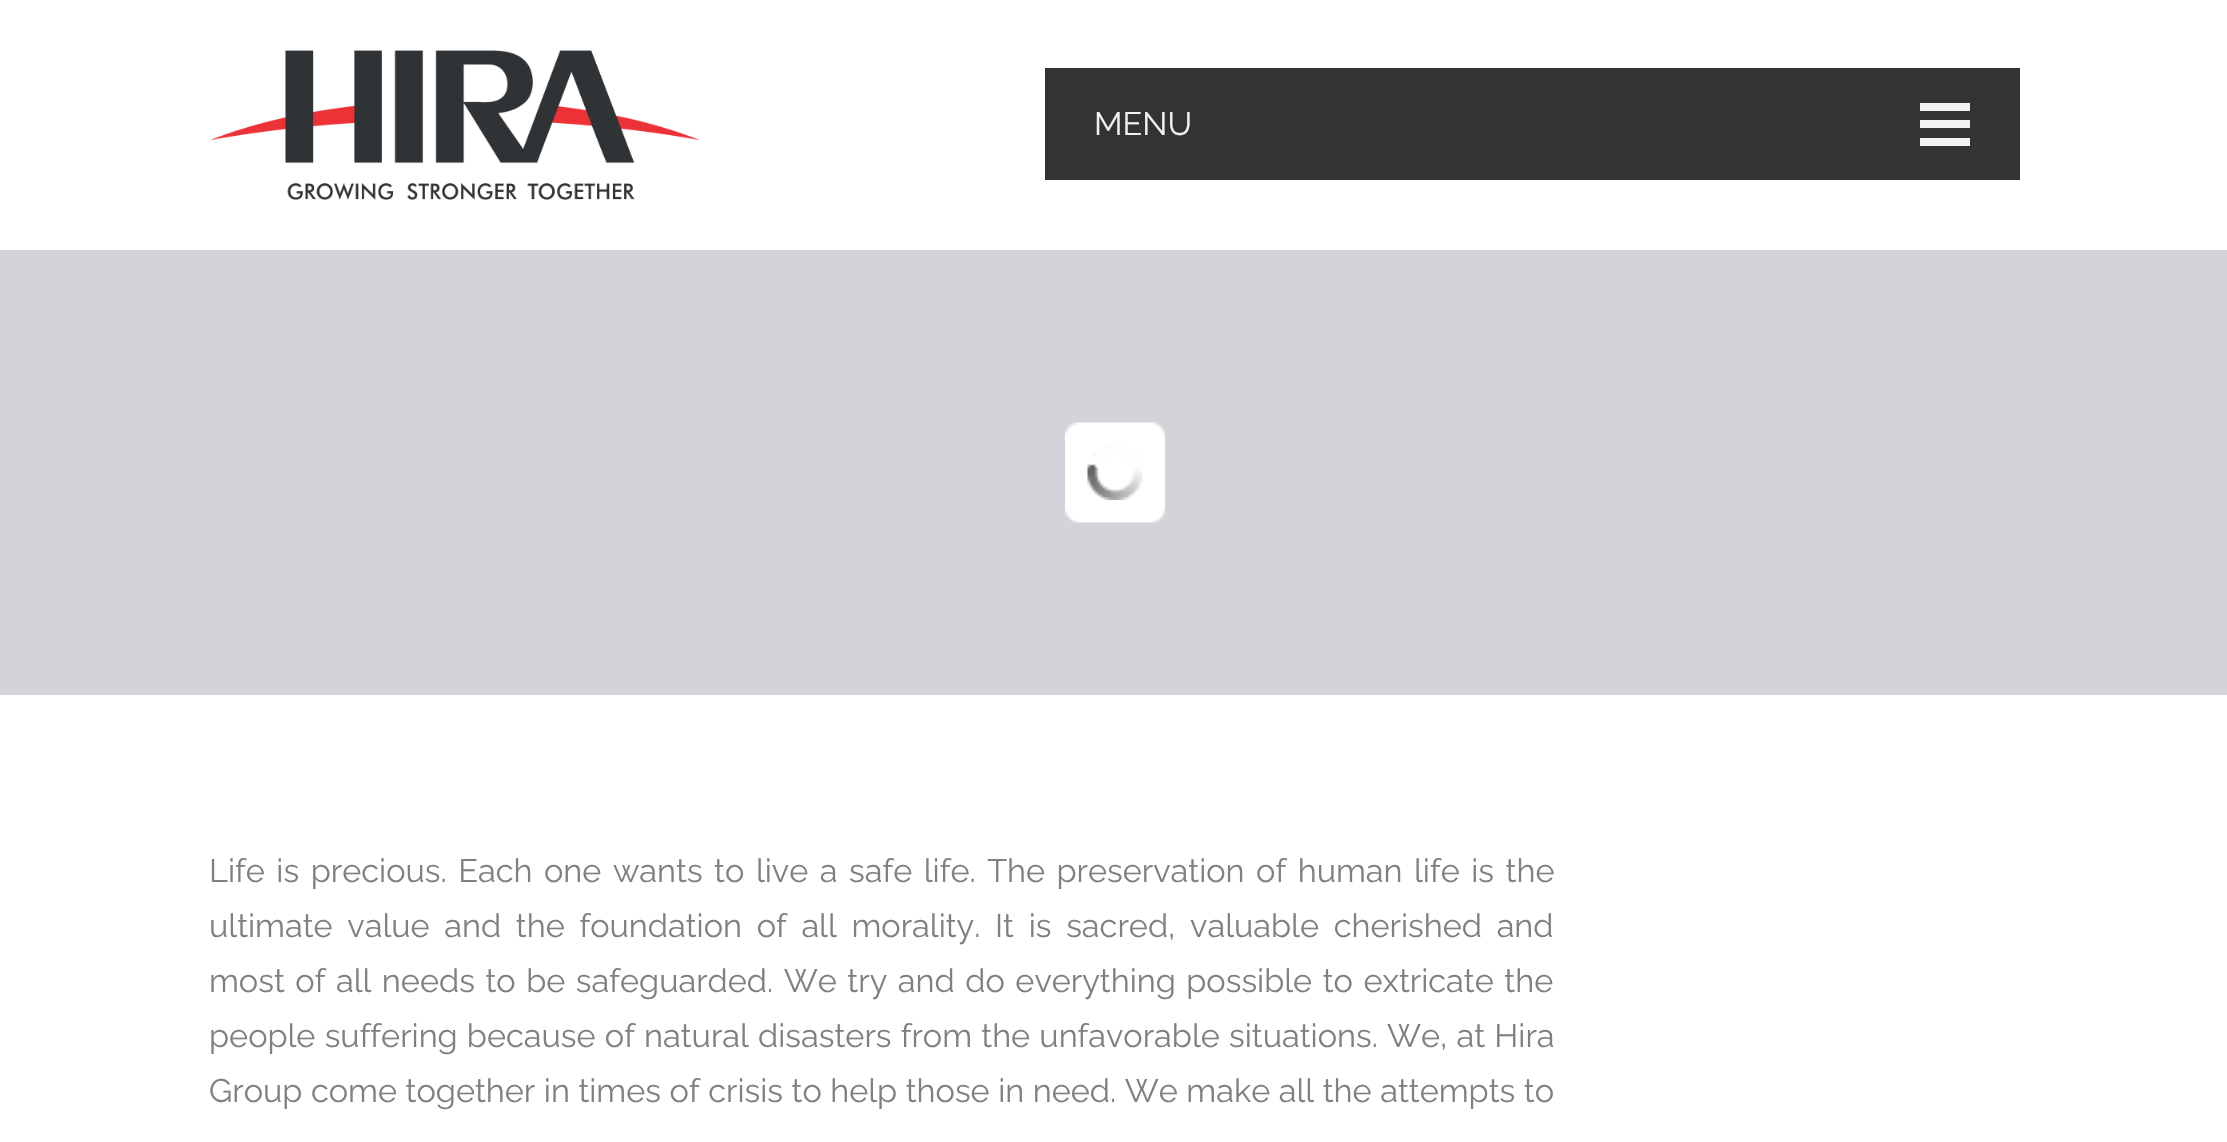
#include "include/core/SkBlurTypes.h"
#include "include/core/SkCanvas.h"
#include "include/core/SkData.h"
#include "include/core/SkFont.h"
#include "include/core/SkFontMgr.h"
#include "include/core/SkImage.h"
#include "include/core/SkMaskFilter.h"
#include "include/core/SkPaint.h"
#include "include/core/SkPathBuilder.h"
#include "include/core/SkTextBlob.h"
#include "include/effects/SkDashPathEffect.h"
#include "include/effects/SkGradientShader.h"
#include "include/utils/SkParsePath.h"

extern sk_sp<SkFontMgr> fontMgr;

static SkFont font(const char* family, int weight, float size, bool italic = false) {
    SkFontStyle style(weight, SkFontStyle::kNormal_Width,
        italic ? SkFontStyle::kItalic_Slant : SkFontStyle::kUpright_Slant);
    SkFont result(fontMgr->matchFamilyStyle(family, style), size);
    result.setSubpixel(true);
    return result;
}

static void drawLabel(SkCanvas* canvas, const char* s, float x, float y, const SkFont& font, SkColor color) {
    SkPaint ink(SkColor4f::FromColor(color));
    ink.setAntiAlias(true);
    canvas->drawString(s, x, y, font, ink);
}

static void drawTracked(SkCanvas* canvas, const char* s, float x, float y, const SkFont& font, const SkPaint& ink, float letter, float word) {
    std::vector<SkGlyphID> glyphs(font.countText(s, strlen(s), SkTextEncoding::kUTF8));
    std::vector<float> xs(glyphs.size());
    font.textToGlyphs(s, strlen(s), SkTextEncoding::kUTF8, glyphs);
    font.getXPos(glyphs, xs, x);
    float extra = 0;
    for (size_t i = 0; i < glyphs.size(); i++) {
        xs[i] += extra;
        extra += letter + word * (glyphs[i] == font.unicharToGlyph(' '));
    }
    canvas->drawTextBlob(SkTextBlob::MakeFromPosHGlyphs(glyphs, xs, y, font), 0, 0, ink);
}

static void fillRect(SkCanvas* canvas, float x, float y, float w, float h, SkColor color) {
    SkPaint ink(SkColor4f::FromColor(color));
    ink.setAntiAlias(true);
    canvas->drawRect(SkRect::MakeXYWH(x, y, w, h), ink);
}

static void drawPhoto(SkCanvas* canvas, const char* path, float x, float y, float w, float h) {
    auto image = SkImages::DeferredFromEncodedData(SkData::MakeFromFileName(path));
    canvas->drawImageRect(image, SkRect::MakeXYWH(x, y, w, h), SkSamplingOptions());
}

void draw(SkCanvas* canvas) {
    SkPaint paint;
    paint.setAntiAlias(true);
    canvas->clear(0xFFFFFFFF);
    drawPhoto(canvas, "assets/img1.png", 210, 50, 490, 150);
    fillRect(canvas, 1045, 68, 975, 112, 0xFF333333);
    SkFont font1 = font("Raleway", 400, 32.5f);
    drawLabel(canvas, "MENU", 1094, 135, font1, 0xFFF1F1F1);
    fillRect(canvas, 1920, 103, 50, 8, 0xFFF1F1F1);
    fillRect(canvas, 1920, 120, 50, 8, 0xFFF1F1F1);
    fillRect(canvas, 1920, 138, 50, 8, 0xFFF1F1F1);
    fillRect(canvas, 0, 250, 2227, 445, 0xFFD3D3D9);
    drawPhoto(canvas, "assets/img2.png", 1065, 422, 100, 101);
    drawPhoto(canvas, "assets/img3.png", 1087, 445, 56, 55);
    paint.setColor(0xFF808080);
    drawTracked(canvas, "Life is precious. Each one wants to live a safe life. The preservation of human life is the", 209, 882, font1, paint, 0, 3.25f);
    drawTracked(canvas, "ultimate value and the foundation of all morality. It is sacred, valuable cherished and", 209, 937, font1, paint, 0, 6.4f);
    drawTracked(canvas, "most of all needs to be safeguarded. We try and do everything possible to extricate the", 209, 992, font1, paint, 0, 2.25f);
    drawTracked(canvas, "people suffering because of natural disasters from the unfavorable situations. We, at Hira", 209, 1047, font1, paint, 0, 0.9f);
    drawTracked(canvas, "Group come together in times of crisis to help those in need. We make all the attempts to", 209, 1102, font1, paint, 0, 0.25f);
}
